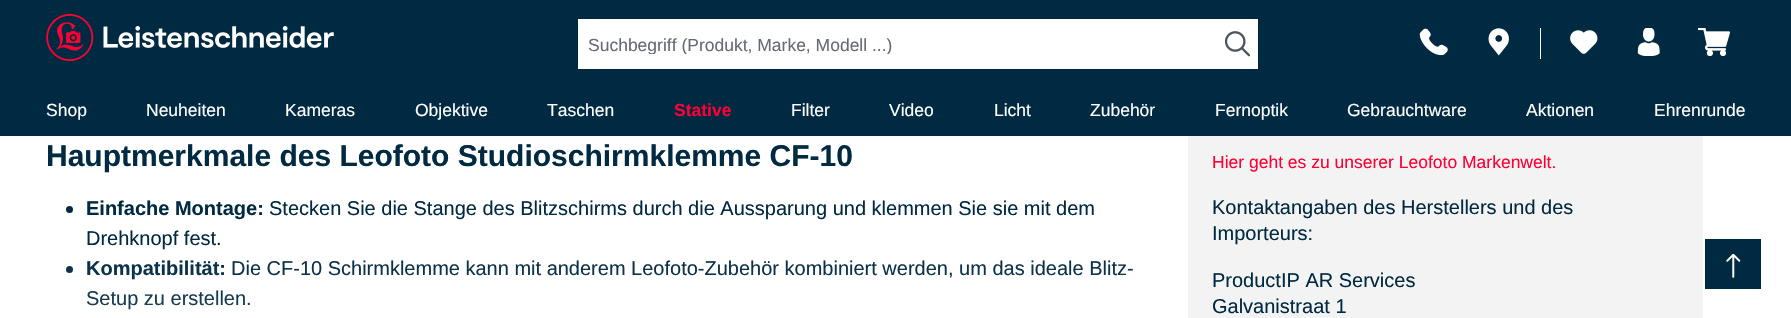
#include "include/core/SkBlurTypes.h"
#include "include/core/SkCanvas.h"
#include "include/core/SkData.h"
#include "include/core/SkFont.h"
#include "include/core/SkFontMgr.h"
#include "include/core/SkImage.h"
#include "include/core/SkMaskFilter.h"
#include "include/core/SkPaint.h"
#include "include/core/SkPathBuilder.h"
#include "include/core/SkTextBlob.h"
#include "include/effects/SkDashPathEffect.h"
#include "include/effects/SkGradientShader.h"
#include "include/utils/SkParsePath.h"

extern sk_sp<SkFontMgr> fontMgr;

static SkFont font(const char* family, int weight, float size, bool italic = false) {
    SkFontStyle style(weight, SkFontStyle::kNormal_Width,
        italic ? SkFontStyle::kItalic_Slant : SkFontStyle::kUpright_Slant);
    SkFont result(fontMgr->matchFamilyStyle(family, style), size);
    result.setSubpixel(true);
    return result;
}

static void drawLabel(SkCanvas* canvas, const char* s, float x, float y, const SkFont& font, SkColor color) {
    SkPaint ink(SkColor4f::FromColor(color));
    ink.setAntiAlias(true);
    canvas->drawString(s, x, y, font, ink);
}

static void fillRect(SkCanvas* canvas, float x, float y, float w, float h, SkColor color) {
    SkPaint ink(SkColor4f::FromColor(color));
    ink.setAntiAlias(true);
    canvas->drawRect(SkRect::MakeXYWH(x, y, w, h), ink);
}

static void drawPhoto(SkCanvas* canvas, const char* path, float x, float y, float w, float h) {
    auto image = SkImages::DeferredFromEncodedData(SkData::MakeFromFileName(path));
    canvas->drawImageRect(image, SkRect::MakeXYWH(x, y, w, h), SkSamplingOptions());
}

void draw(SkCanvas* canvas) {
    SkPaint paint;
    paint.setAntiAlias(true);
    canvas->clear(0xFFFFFFFF);
    fillRect(canvas, 0, 0, 1791, 136, 0xFF002942);
    drawPhoto(canvas, "assets/img1.png", 46, 14, 288, 47);
    fillRect(canvas, 578, 19, 680, 50, 0xFFFFFFFF);
    canvas->save();
    canvas->clipRect(SkRect::MakeXYWH(589, 34, 619, 20));
    SkFont font1 = font("Liberation Sans", 400, 17.5f);
    drawLabel(canvas, "Suchbegriff (Produkt, Marke, Modell ...)", 588, 51, font1, 0xFF666977);
    canvas->restore();
    drawPhoto(canvas, "assets/img2.png", 1224, 31, 27, 26);
    drawPhoto(canvas, "assets/img3.png", 1419, 28, 29, 28);
    drawPhoto(canvas, "assets/img4.png", 1488, 28, 21, 28);
    fillRect(canvas, 1540, 28, 1, 31, 0xFFFFFFFF);
    drawPhoto(canvas, "assets/img5.png", 1570, 30, 28, 24);
    drawPhoto(canvas, "assets/img6.png", 1637, 28, 23, 28);
    drawPhoto(canvas, "assets/img7.png", 1698, 28, 32, 28);
    drawLabel(canvas, "Shop", 46, 116, font1, 0xFFFFFFFF);
    drawLabel(canvas, "Neuheiten", 146, 116, font1, 0xFFFFFFFF);
    drawLabel(canvas, "Kameras", 285, 116, font1, 0xFFFFFFFF);
    drawLabel(canvas, "Objektive", 415, 116, font1, 0xFFFFFFFF);
    drawLabel(canvas, "Taschen", 547, 116, font1, 0xFFFFFFFF);
    SkFont font2 = font("Liberation Sans", 700, 17.5f);
    drawLabel(canvas, "Stative", 674, 116, font2, 0xFFFF0033);
    drawLabel(canvas, "Filter", 791, 116, font1, 0xFFFFFFFF);
    drawLabel(canvas, "Video", 889, 116, font1, 0xFFFFFFFF);
    drawLabel(canvas, "Licht", 994, 116, font1, 0xFFFFFFFF);
    drawLabel(canvas, "Zubehör", 1090, 116, font1, 0xFFFFFFFF);
    drawLabel(canvas, "Fernoptik", 1215, 116, font1, 0xFFFFFFFF);
    drawLabel(canvas, "Gebrauchtware", 1347, 116, font1, 0xFFFFFFFF);
    drawLabel(canvas, "Aktionen", 1526, 116, font1, 0xFFFFFFFF);
    drawLabel(canvas, "Ehrenrunde", 1654, 116, font1, 0xFFFFFFFF);
    SkFont font3 = font("Liberation Sans", 700, 30);
    drawLabel(canvas, "Hauptmerkmale des Leofoto Studioschirmklemme CF-10", 46, 166, font3, 0xFF002942);
    paint.setColor(0xFF002942);
    canvas->drawCircle(69.5f, 209.5f, 3.5f, paint);
    SkFont font4 = font("Liberation Sans", 700, 20);
    drawLabel(canvas, "Einfache Montage:", 86, 215, font4, 0xFF002942);
    SkFont font5 = font("Liberation Sans", 400, 20);
    drawLabel(canvas, "Stecken Sie die Stange des Blitzschirms durch die Aussparung und klemmen Sie sie mit dem", 269, 215, font5, 0xFF002942);
    drawLabel(canvas, "Drehknopf fest.", 86, 245, font5, 0xFF002942);
    canvas->drawCircle(69.5f, 269.5f, 3.5f, paint);
    drawLabel(canvas, "Kompatibilität:", 86, 275, font4, 0xFF002942);
    drawLabel(canvas, "Die CF-10 Schirmklemme kann mit anderem Leofoto-Zubehör kombiniert werden, um das ideale Blitz-", 231, 275, font5, 0xFF002942);
    drawLabel(canvas, "Setup zu erstellen.", 86, 305, font5, 0xFF002942);
    {
        const SkColor colors[] = {0x00FFFFFF, 0xFFFFFFFF};
        const float stops[] = {0.05f, 1};
        const SkPoint ends[] = {{604, 206}, {604, 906}};
        paint.setShader(SkGradientShader::MakeLinear(ends, colors, stops, 2, SkTileMode::kClamp));
        paint.setAlpha(255);
    }
    canvas->drawRect(SkRect::MakeXYWH(66, 260, 1067, 50), paint);
    fillRect(canvas, 1188, 136, 515, 182, 0xFFF3F3F3);
    drawLabel(canvas, "Hier geht es zu unserer Leofoto Markenwelt.", 1212, 168, font1, 0xFFFF0033);
    drawLabel(canvas, "Kontaktangaben des Herstellers und des", 1212, 214, font5, 0xFF002942);
    drawLabel(canvas, "Importeurs:", 1212, 240, font5, 0xFF002942);
    drawLabel(canvas, "ProductIP AR Services", 1212, 287, font5, 0xFF002942);
    drawLabel(canvas, "Galvanistraat 1", 1212, 313, font5, 0xFF002942);
    fillRect(canvas, 1705, 239, 56, 50, 0xFF002942);
    drawPhoto(canvas, "assets/img8.png", 1726, 254, 15, 24);
}
